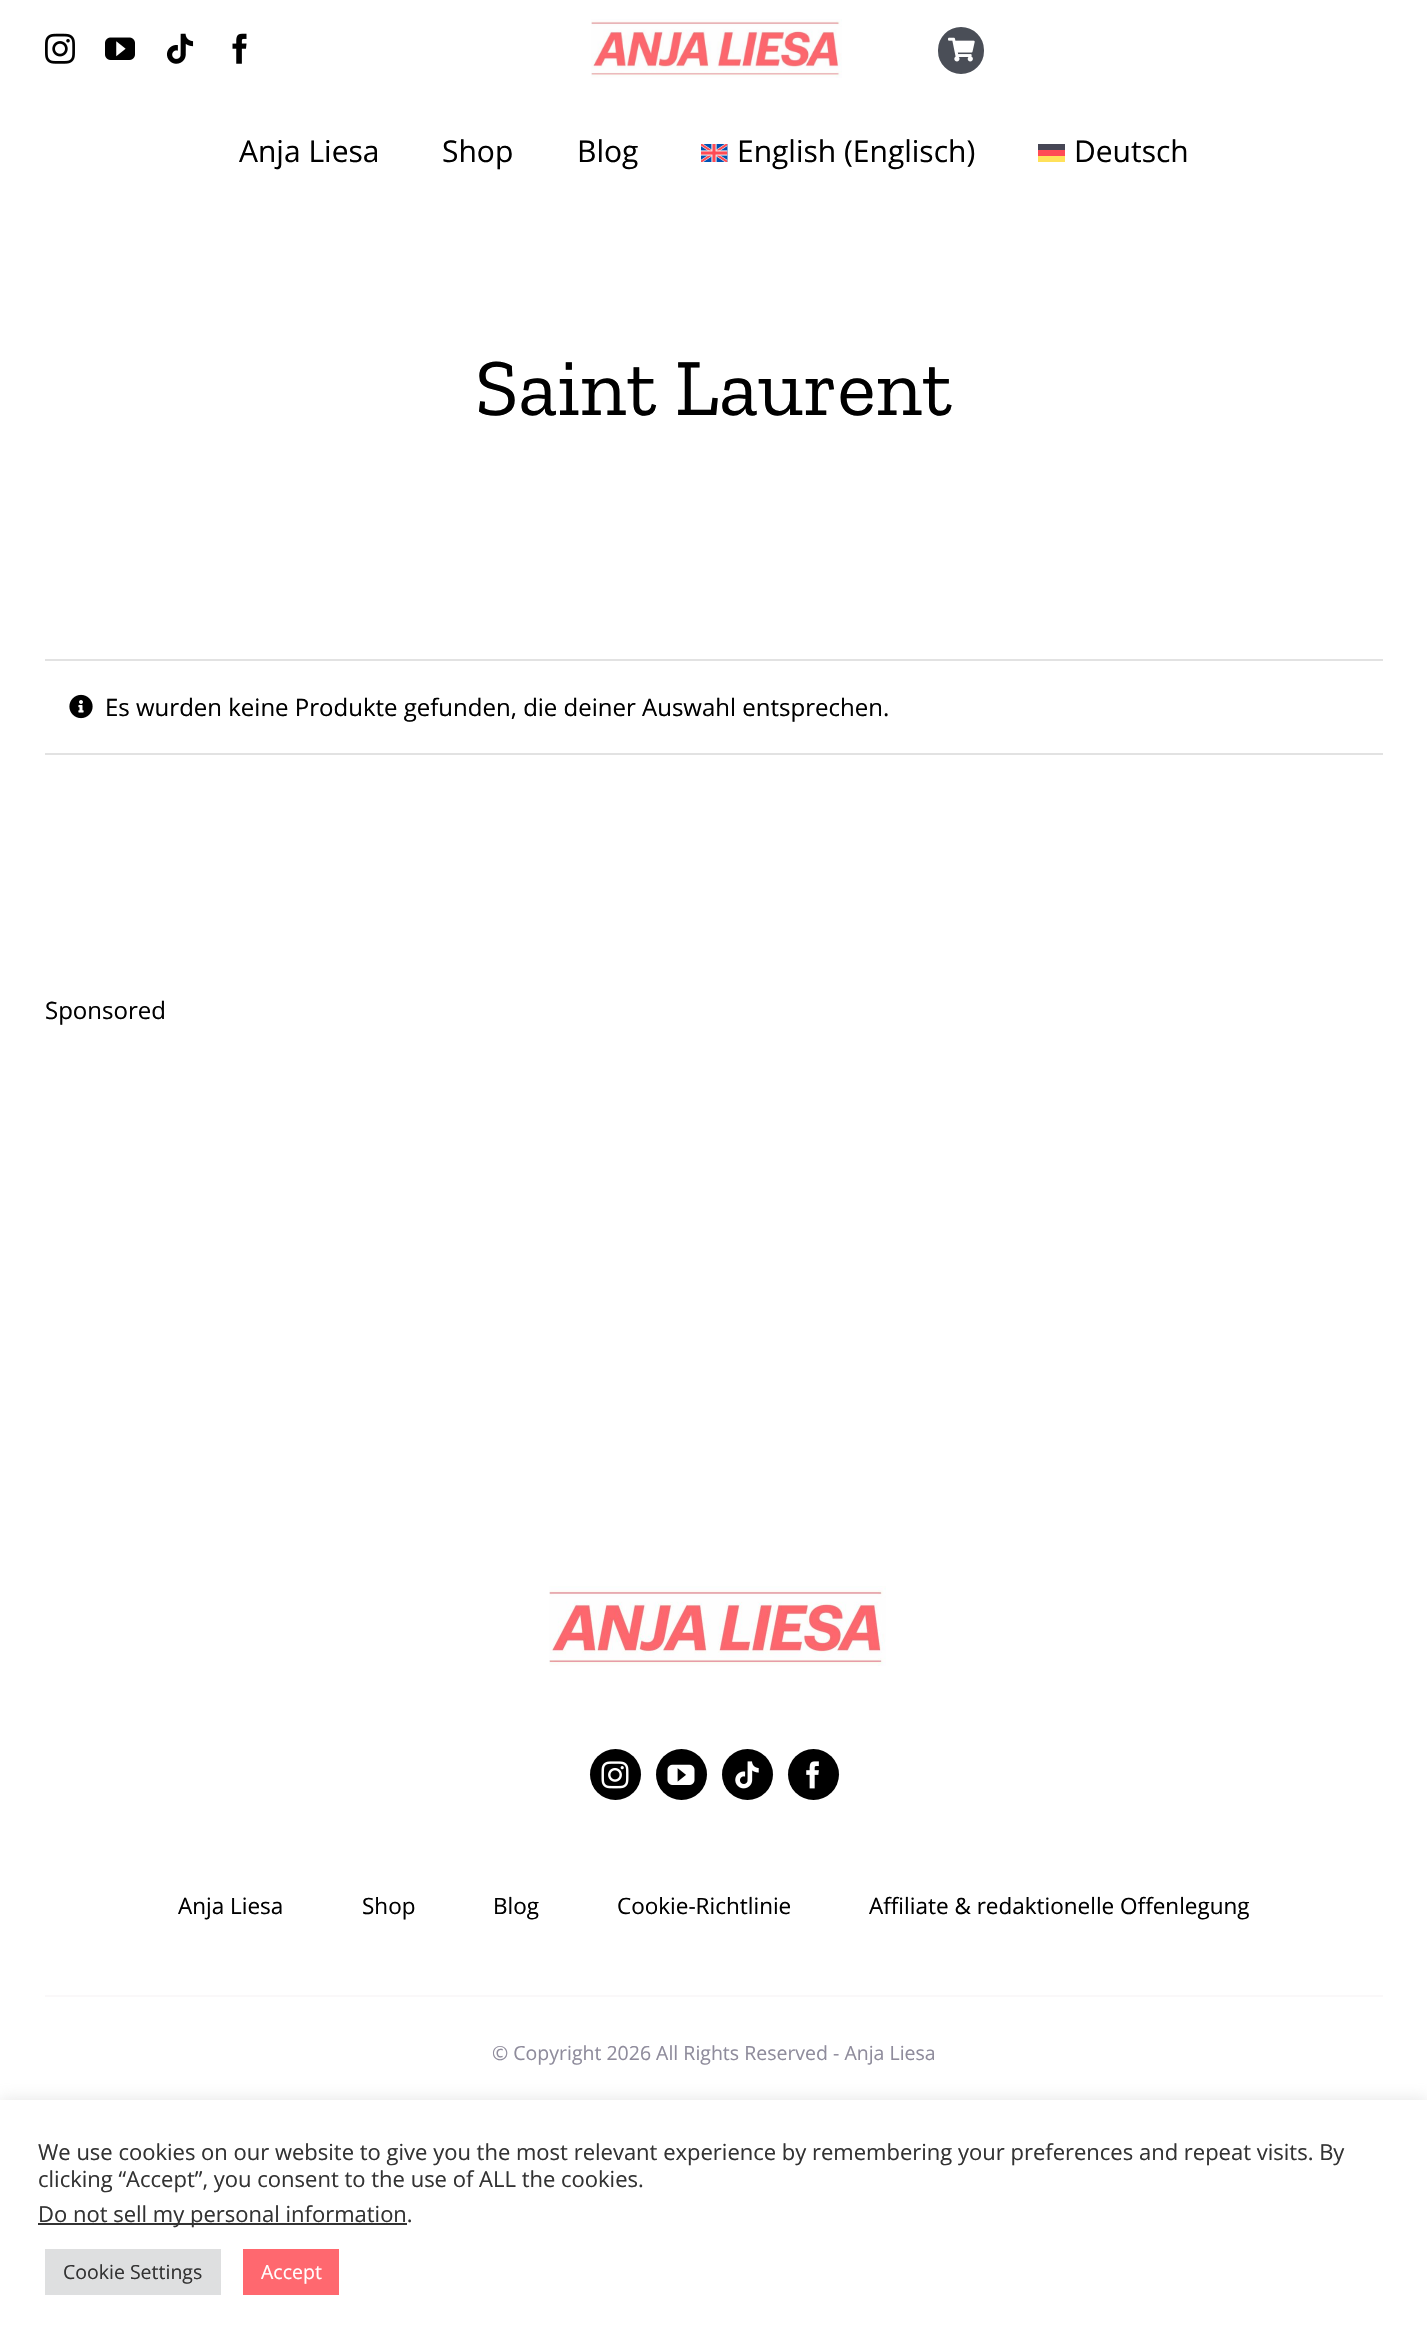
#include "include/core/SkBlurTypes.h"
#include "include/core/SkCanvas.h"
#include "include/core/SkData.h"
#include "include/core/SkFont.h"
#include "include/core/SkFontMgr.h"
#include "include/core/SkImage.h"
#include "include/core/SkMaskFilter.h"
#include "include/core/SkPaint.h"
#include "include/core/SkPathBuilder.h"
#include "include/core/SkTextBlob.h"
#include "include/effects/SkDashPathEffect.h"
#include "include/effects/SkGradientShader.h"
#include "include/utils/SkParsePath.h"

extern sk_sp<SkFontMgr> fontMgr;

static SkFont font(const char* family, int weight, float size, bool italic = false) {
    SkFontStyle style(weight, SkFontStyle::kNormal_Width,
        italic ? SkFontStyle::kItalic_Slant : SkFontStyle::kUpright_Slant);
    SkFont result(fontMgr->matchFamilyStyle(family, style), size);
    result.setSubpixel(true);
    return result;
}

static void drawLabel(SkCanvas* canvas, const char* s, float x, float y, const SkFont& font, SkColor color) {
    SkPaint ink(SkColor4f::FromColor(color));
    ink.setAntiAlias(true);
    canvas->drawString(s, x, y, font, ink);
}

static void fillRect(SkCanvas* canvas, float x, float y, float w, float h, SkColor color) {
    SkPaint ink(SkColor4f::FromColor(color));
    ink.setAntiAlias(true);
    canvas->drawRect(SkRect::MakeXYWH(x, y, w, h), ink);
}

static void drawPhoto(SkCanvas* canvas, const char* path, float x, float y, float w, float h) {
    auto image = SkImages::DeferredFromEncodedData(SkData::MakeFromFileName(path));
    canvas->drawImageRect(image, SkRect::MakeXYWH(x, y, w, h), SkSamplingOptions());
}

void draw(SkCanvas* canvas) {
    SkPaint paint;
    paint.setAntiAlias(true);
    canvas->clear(0xFFFFFFFF);
    drawPhoto(canvas, "assets/img1.png", 45, 33, 30, 31);
    drawPhoto(canvas, "assets/img2.png", 105, 37, 30, 23);
    drawPhoto(canvas, "assets/img3.png", 167, 33, 27, 31);
    drawPhoto(canvas, "assets/img4.png", 232, 33, 15, 31);
    drawPhoto(canvas, "assets/img5.png", 591, 19, 251, 59);
    paint.setColor(0xFF4A4E57);
    canvas->drawRoundRect(SkRect::MakeXYWH(939, 28, 44, 45), 22, 22, paint);
    paint.setStroke(true);
    paint.setStrokeWidth(2);
    canvas->drawRoundRect(SkRect::MakeXYWH(939, 28, 44, 45), 22, 22, paint);
    drawPhoto(canvas, "assets/img6.png", 948, 37, 27, 25);
    SkFont font1 = font("Open Sans", 400, 30);
    drawLabel(canvas, "Anja Liesa", 239, 162, font1, 0xFF000000);
    drawLabel(canvas, "Shop", 442, 162, font1, 0xFF000000);
    drawLabel(canvas, "Blog", 577, 162, font1, 0xFF000000);
    drawPhoto(canvas, "assets/img7.png", 701, 144, 27, 18);
    drawLabel(canvas, "English (Englisch)", 737, 162, font1, 0xFF000000);
    fillRect(canvas, 1038, 144, 27, 6, 0xFF464655);
    drawLabel(canvas, "Deutsch", 1074, 162, font1, 0xFF000000);
    fillRect(canvas, 1038, 150, 27, 6, 0xFFFF4B55);
    fillRect(canvas, 1038, 156, 27, 6, 0xFFFFE15A);
    SkFont font2 = font("Zilla Slab", 400, 81);
    drawLabel(canvas, "Saint Laurent", 475, 415, font2, 0xFF000000);
    fillRect(canvas, 45, 659, 1338, 2, 0xFFE2E2E2);
    fillRect(canvas, 45, 753, 1338, 2, 0xFFE2E2E2);
    drawPhoto(canvas, "assets/img8.png", 69, 694, 24, 25);
    SkFont font3 = font("Open Sans", 400, 24);
    drawLabel(canvas, "Es wurden keine Produkte gefunden, die deiner Auswahl entsprechen.", 105, 716, font3, 0xFF000000);
    drawLabel(canvas, "Sponsored", 45, 1019, font3, 0xFF000000);
    drawPhoto(canvas, "assets/img9.png", 549, 1586, 337, 80);
    paint.setStroke(false);
    paint.setColor(0xFF000000);
    canvas->drawCircle(615.5f, 1774.5f, 25.5f, paint);
    drawPhoto(canvas, "assets/img10.png", 601, 1761, 28, 28);
    canvas->drawCircle(681.5f, 1774.5f, 25.5f, paint);
    drawPhoto(canvas, "assets/img11.png", 667, 1764, 28, 21);
    canvas->drawCircle(747.5f, 1774.5f, 25.5f, paint);
    drawPhoto(canvas, "assets/img12.png", 735, 1761, 24, 28);
    canvas->drawCircle(813.5f, 1774.5f, 25.5f, paint);
    drawPhoto(canvas, "assets/img13.png", 806, 1761, 13, 28);
    SkFont font4 = font("Open Sans", 400, 22.5f);
    drawLabel(canvas, "Anja Liesa", 178, 1914, font4, 0xFF000000);
    drawLabel(canvas, "Shop", 362, 1914, font4, 0xFF000000);
    drawLabel(canvas, "Blog", 493, 1914, font4, 0xFF000000);
    drawLabel(canvas, "Cookie-Richtlinie", 617, 1914, font4, 0xFF000000);
    drawLabel(canvas, "Affiliate & redaktionelle Offenlegung", 869, 1914, font4, 0xFF000000);
    fillRect(canvas, 45, 1995, 1338, 2, 0xFFFAF8F9);
    SkFont font5 = font("Open Sans", 400, 19.5f);
    drawLabel(canvas, "© Copyright 2026 All Rights Reserved - Anja Liesa", 492, 2060, font5, 0xFF8F8C9C);
    paint.setColor(0x4DACABAB);
    paint.setMaskFilter(SkMaskFilter::MakeBlur(kNormal_SkBlurStyle, 7.5f));
    canvas->drawRect(SkRect::MakeXYWH(0, 2099, 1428, 240), paint);
    paint.setMaskFilter(nullptr);
    fillRect(canvas, 0, 2100, 1427, 240, 0xFFFFFFFF);
    SkFont font6 = font("Open Sans", 400, 22);
    drawLabel(canvas, "We use cookies on our website to give you the most relevant experience by remembering your preferences and repeat visits. By", 38, 2160, font6, 0xFF333333);
    drawLabel(canvas, "clicking “Accept”, you consent to the use of ALL the cookies.", 38, 2187, font6, 0xFF333333);
    fillRect(canvas, 38, 2223, 369, 2, 0xFF333333);
    drawLabel(canvas, "Do not sell my personal information.", 38, 2222, font6, 0xFF333333);
    fillRect(canvas, 45, 2249, 176, 46, 0xFFDEDFE0);
    drawLabel(canvas, "Cookie Settings", 63, 2279, font5, 0xFF333333);
    fillRect(canvas, 243, 2249, 96, 46, 0xFFFF686F);
    drawLabel(canvas, "Accept", 261, 2279, font5, 0xFFFFFFFF);
}
